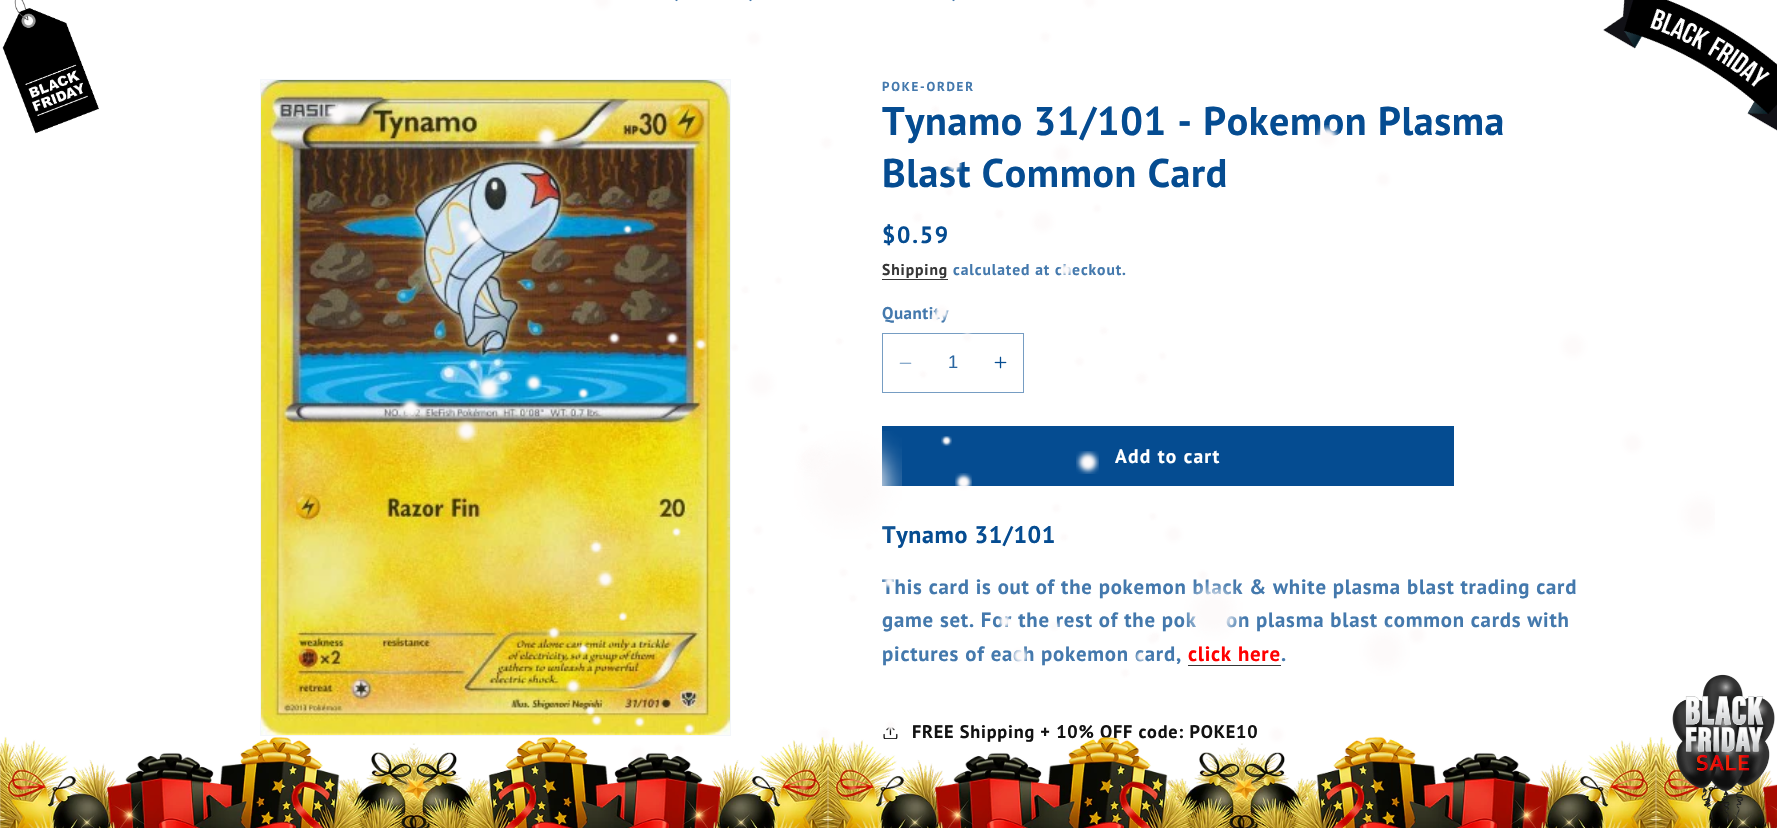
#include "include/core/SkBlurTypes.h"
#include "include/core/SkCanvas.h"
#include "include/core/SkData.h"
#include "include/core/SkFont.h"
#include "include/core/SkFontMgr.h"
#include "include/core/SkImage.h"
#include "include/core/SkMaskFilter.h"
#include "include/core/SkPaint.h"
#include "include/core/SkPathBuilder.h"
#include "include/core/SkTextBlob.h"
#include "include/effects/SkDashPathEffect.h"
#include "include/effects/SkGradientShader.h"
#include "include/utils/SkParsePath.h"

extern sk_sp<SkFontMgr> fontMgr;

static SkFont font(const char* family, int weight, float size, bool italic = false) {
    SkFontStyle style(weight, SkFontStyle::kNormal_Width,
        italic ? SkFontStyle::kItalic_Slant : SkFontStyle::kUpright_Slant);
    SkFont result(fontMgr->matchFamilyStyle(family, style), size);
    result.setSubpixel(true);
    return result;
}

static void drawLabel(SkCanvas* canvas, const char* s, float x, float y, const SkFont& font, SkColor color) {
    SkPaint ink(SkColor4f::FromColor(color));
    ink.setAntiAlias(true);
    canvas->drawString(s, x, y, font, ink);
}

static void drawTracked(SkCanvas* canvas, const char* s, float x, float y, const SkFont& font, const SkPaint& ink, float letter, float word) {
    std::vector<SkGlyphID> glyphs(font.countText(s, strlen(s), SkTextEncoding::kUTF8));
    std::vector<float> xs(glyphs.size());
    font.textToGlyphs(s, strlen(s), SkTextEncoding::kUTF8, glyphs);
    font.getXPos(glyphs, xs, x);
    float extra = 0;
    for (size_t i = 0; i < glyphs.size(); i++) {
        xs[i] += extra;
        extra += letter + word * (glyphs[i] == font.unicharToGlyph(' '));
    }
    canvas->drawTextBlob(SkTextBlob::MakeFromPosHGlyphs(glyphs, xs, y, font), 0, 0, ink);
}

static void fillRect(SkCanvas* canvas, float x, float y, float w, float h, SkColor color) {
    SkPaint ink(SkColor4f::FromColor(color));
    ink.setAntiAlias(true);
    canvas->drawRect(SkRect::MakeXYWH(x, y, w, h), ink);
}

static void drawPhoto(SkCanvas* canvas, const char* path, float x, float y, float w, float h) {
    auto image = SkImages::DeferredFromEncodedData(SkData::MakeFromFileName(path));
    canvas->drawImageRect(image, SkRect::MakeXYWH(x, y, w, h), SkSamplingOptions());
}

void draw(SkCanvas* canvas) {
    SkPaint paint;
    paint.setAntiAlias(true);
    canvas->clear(0xFFFFFFFF);
    drawPhoto(canvas, "assets/img1.png", 2, 0, 97, 134);
    drawPhoto(canvas, "assets/img3.png", 675, 0, 3, 2);
    drawPhoto(canvas, "assets/img3.png", 749, 0, 3, 2);
    drawPhoto(canvas, "assets/img3.png", 952, 0, 3, 2);
    paint.setStroke(true);
    paint.setStrokeWidth(1);
    paint.setColor(0xFFF3F6FA);
    canvas->drawRect(SkRect::MakeXYWH(260.5f, 79.5f, 470, 656), paint);
    drawPhoto(canvas, "assets/img5.png", 261, 80, 469, 655);
    SkFont font1 = font("PT Sans", 700, 13);
    paint.setStroke(false);
    paint.setColor(0xFF4479AD);
    drawTracked(canvas, "POKE-ORDER", 882, 91, font1, paint, 1.75f, 0);
    SkFont font2 = font("PT Sans", 700, 40);
    paint.setColor(0xFF054C91);
    drawTracked(canvas, "Tynamo 31/101 - Pokemon Plasma", 882, 135, font2, paint, 0.6f, 0);
    drawTracked(canvas, "Blast Common Card", 882, 187, font2, paint, 0.6f, 0);
    SkFont font3 = font("PT Sans", 700, 23.5f);
    drawTracked(canvas, "$0.59", 882, 243, font3, paint, 1.75f, 0);
    SkFont font4 = font("PT Sans", 700, 15.6f);
    paint.setColor(0xFF363636);
    drawTracked(canvas, "Shipping", 882, 275, font4, paint, 0.9f, 0);
    fillRect(canvas, 882, 279, 66, 1, 0xFF363636);
    paint.setColor(0xFF4479AD);
    drawTracked(canvas, "calculated at checkout.", 953, 275, font4, paint, 0.9f, 0);
    SkFont font5 = font("PT Sans", 700, 17);
    drawTracked(canvas, "Quantity", 882, 319, font5, paint, 0.5f, 0);
    drawPhoto(canvas, "assets/img6.png", 899, 362, 13, 2);
    drawPhoto(canvas, "assets/img7.png", 994, 356, 13, 13);
    paint.setStroke(true);
    paint.setColor(0xFF769DC3);
    canvas->drawRect(SkRect::MakeXYWH(882.5f, 333.5f, 141, 59), paint);
    SkFont font6 = font("Liberation Sans", 400, 18.25f);
    drawLabel(canvas, "1", 948, 368, font6, 0xFF2B67A2);
    fillRect(canvas, 882, 426, 572, 60, 0xFF054C91);
    SkFont font7 = font("PT Sans", 700, 19.5f);
    paint.setStroke(false);
    paint.setColor(0xFFFFFFFF);
    drawTracked(canvas, "Add to cart", 1115, 463, font7, paint, 1.25f, 0);
    SkFont font8 = font("PT Sans", 700, 24);
    paint.setColor(0xFF054C91);
    drawTracked(canvas, "Tynamo 31/101", 882, 543, font8, paint, 0.6f, 0);
    SkFont font9 = font("PT Sans", 700, 20.8f);
    paint.setColor(0xFF4479AD);
    drawTracked(canvas, "This card is out of the pokemon black & white plasma blast trading card", 882, 594, font9, paint, 0.78f, 0);
    drawTracked(canvas, "game set. For the rest of the pok", 882, 627, font9, paint, 0.78f, 0);
    drawTracked(canvas, "on plasma blast common cards with", 1226, 627, font9, paint, 0.78f, 0);
    drawTracked(canvas, "pictures of each pokemon card,", 882, 661, font9, paint, 0.78f, 0);
    paint.setColor(0xFFFF0000);
    drawTracked(canvas, "click here", 1188, 661, font9, paint, 0.78f, 0);
    fillRect(canvas, 1188, 665, 93, 1, 0xFF363636);
    paint.setColor(0xFF4479AD);
    drawTracked(canvas, ".", 1281, 661, font9, paint, 0.78f, 0);
    drawPhoto(canvas, "assets/img8.png", 883, 725, 15, 14);
    SkFont font10 = font("PT Sans", 700, 18.25f);
    paint.setColor(0xFF121212);
    drawTracked(canvas, "FREE Shipping + 10% OFF code: POKE10", 912, 738, font10, paint, 0.78f, 0);
    drawPhoto(canvas, "assets/img2.png", 325, 0, 1390, 759);
    drawPhoto(canvas, "assets/img4.png", 1603, 0, 174, 131);
    drawPhoto(canvas, "assets/img10.png", 0, 736, 1777, 92);
    drawPhoto(canvas, "assets/img9.png", 1672, 674, 103, 150);
}
